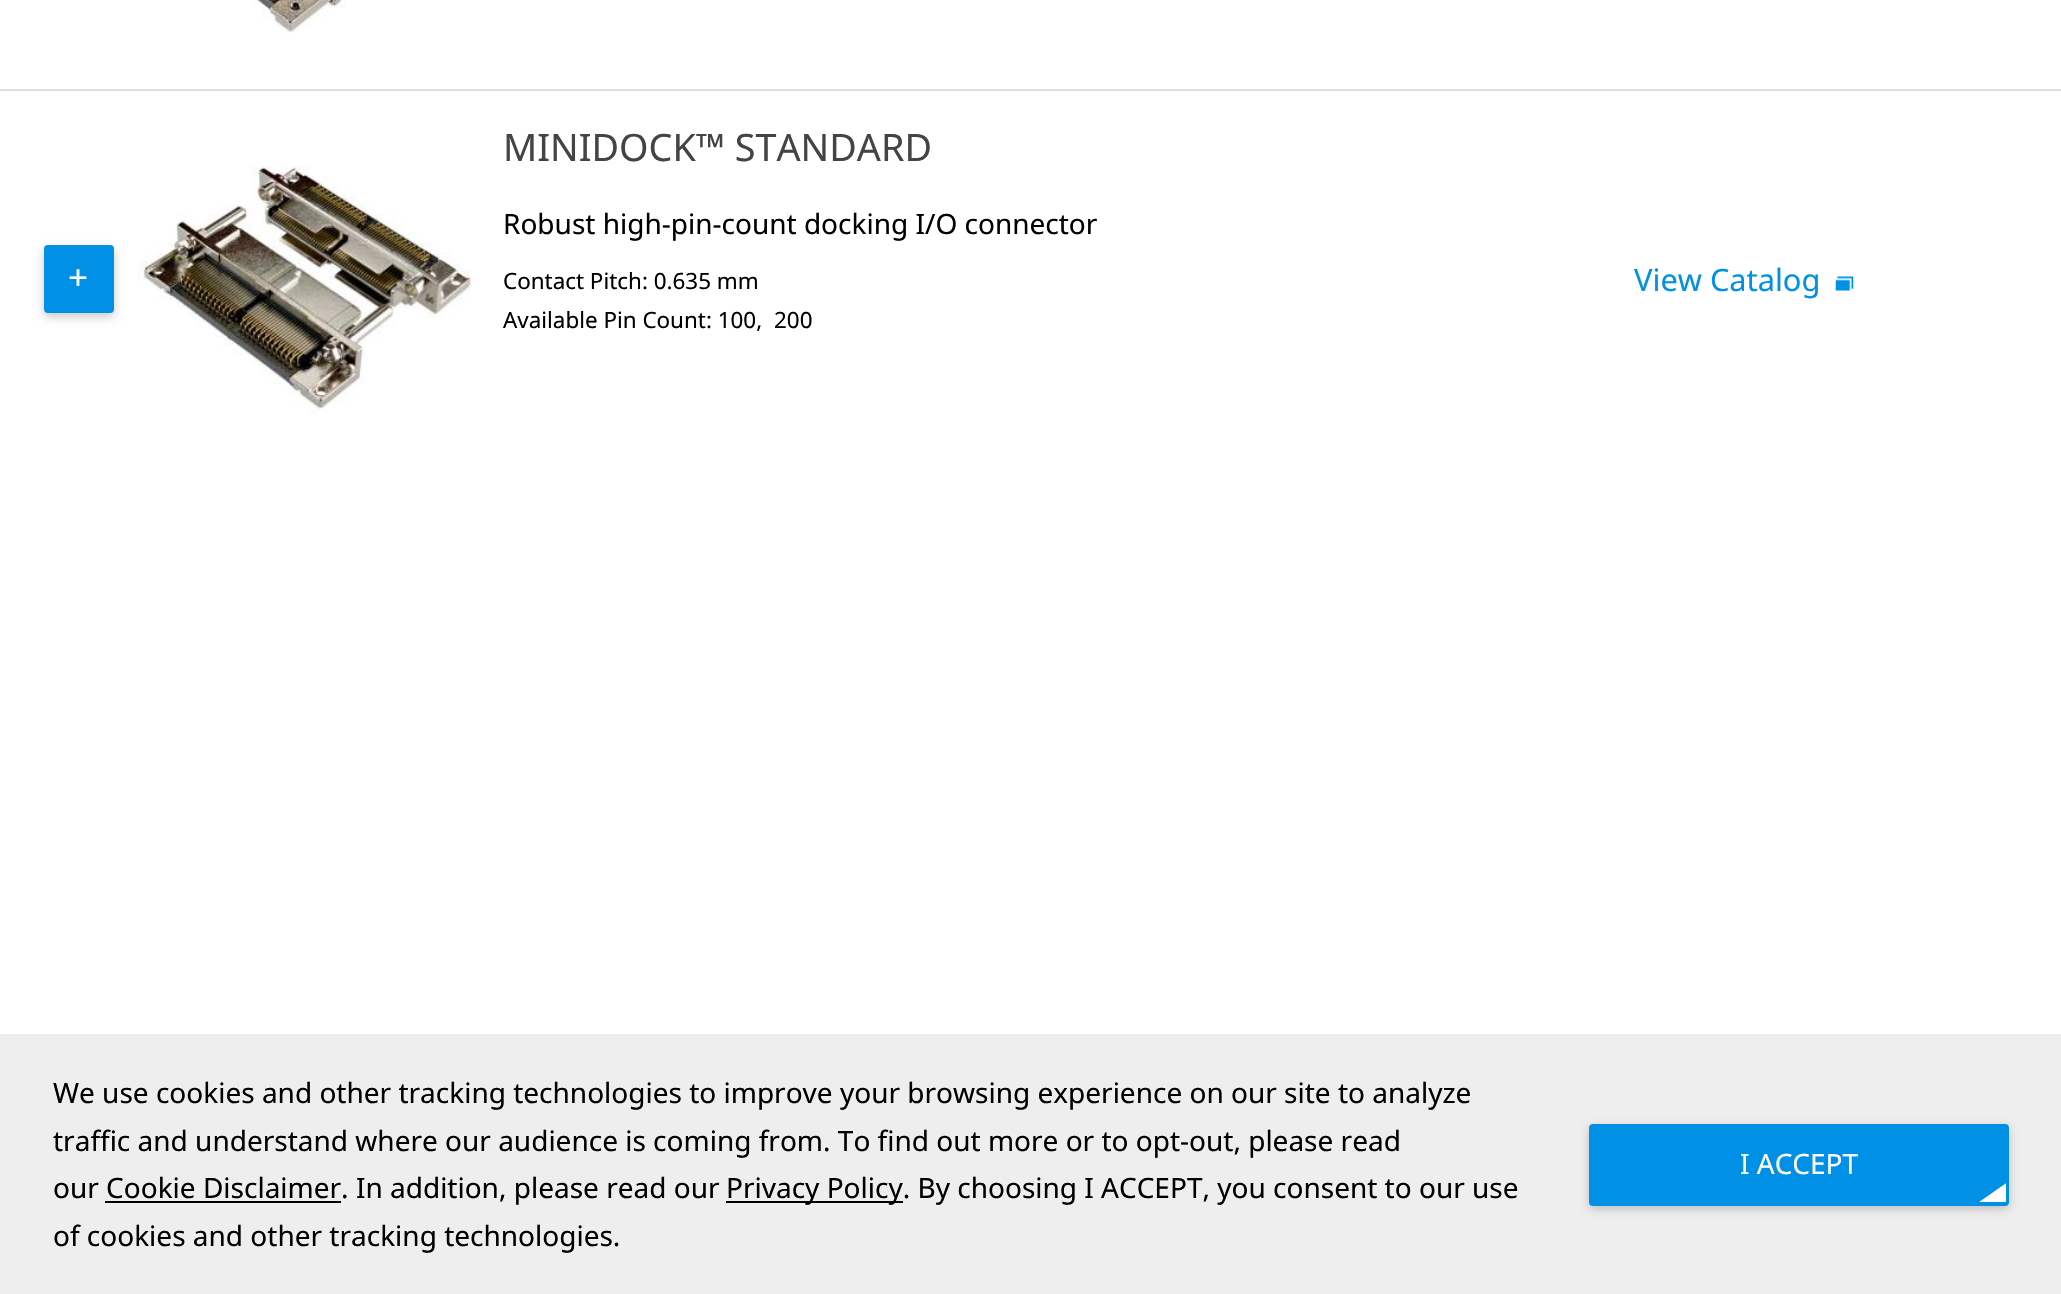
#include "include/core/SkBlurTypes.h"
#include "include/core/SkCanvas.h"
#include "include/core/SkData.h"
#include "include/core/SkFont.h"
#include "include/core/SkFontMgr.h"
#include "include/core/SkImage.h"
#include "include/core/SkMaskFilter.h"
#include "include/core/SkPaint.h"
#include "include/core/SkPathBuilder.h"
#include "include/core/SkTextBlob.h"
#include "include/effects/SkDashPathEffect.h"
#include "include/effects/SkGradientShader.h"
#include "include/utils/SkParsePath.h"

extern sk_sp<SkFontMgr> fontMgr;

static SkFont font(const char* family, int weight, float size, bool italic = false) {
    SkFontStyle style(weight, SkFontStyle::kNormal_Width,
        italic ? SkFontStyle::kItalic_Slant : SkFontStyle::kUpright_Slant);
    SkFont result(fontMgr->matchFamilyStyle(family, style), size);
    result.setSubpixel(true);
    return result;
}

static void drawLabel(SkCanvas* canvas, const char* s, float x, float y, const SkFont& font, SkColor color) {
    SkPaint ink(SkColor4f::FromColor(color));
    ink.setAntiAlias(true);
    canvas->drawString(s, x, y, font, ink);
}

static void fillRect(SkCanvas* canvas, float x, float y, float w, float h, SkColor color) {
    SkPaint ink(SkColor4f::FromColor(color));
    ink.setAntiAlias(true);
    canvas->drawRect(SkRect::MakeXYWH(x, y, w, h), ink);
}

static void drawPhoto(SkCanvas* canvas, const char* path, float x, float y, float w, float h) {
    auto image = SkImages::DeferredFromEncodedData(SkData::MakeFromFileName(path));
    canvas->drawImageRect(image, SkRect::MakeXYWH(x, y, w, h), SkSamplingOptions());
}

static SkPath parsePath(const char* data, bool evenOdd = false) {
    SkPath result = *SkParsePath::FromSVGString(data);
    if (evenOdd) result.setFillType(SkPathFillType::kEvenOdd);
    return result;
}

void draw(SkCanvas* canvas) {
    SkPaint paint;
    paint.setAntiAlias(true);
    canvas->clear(0xFFFFFFFF);
    drawPhoto(canvas, "assets/img1.png", 252, 0, 94, 33);
    fillRect(canvas, 0, 89, 2061, 2, 0xFFDDDDDE);
    paint.setColor(0x33000000);
    paint.setMaskFilter(SkMaskFilter::MakeBlur(kNormal_SkBlurStyle, 5));
    canvas->drawRoundRect(SkRect::MakeXYWH(44, 249, 70, 68), 4, 4, paint);
    paint.setMaskFilter(nullptr);
    paint.setColor(0xFF0091E6);
    canvas->drawRoundRect(SkRect::MakeXYWH(45, 246, 68, 66), 3, 3, paint);
    paint.setStroke(true);
    paint.setStrokeWidth(2);
    canvas->drawRoundRect(SkRect::MakeXYWH(45, 246, 68, 66), 3, 3, paint);
    SkFont font1 = font("Noto Sans", 400, 35);
    drawLabel(canvas, "+", 68, 290, font1, 0xFFFEFEFE);
    drawPhoto(canvas, "assets/img2.png", 138, 166, 335, 247);
    SkFont font2 = font("Noto Sans", 400, 37.75f);
    drawLabel(canvas, "MINIDOCK™ STANDARD", 503, 161, font2, 0xFF444444);
    SkFont font3 = font("Noto Sans", 400, 28);
    drawLabel(canvas, "Robust high-pin-count docking I/O connector", 503, 234, font3, 0xFF000000);
    SkFont font4 = font("Noto Sans", 400, 22.4f);
    drawLabel(canvas, "Contact Pitch: 0.635 mm", 503, 289, font4, 0xFF000000);
    drawLabel(canvas, "Available Pin Count: 100,", 503, 328, font4, 0xFF000000);
    drawLabel(canvas, "200", 774, 328, font4, 0xFF000000);
    SkFont font5 = font("Noto Sans", 400, 30.75f);
    drawLabel(canvas, "View Catalog", 1634, 291, font5, 0xFF0091E6);
    drawPhoto(canvas, "assets/img3.png", 1835, 276, 19, 15);
    fillRect(canvas, 0, 1034, 2061, 260, 0xFFEEEEEE);
    drawLabel(canvas, "We use cookies and other tracking technologies to improve your browsing experience on our site to analyze", 53, 1103, font3, 0xFF000000);
    drawLabel(canvas, "traffic and understand where our audience is coming from. To find out more or to opt-out, please read", 53, 1151, font3, 0xFF000000);
    drawLabel(canvas, "our Cookie Disclaimer. In addition, please read our", 53, 1198, font3, 0xFF000000);
    fillRect(canvas, 726, 1201, 177, 2, 0xFF000000);
    drawLabel(canvas, "Privacy Policy. By choosing I ACCEPT, you consent to our use", 726, 1198, font3, 0xFF000000);
    fillRect(canvas, 105, 1201, 236, 2, 0xFF000000);
    drawLabel(canvas, "of cookies and other tracking technologies.", 53, 1246, font3, 0xFF000000);
    paint.setStroke(false);
    paint.setColor(0x33000000);
    paint.setMaskFilter(SkMaskFilter::MakeBlur(kNormal_SkBlurStyle, 5));
    canvas->drawRoundRect(SkRect::MakeXYWH(1589, 1127, 420, 82), 4, 4, paint);
    paint.setMaskFilter(nullptr);
    paint.setColor(0xFF0091E6);
    canvas->drawRoundRect(SkRect::MakeXYWH(1591, 1126, 416, 78), 2, 2, paint);
    paint.setStroke(true);
    paint.setStrokeWidth(4);
    canvas->drawRoundRect(SkRect::MakeXYWH(1591, 1126, 416, 78), 2, 2, paint);
    drawLabel(canvas, "I ACCEPT", 1740, 1174, font3, 0xFFFEFEFE);
    canvas->save();
    canvas->clipRect(SkRect::MakeXYWH(1593, 1127, 413, 75));
    paint.setStroke(false);
    paint.setColor(0xFFFFFFFF);
    canvas->drawPath(parsePath("M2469 859L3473 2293L2039 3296L1035 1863Z"), paint);
    canvas->restore();
}
